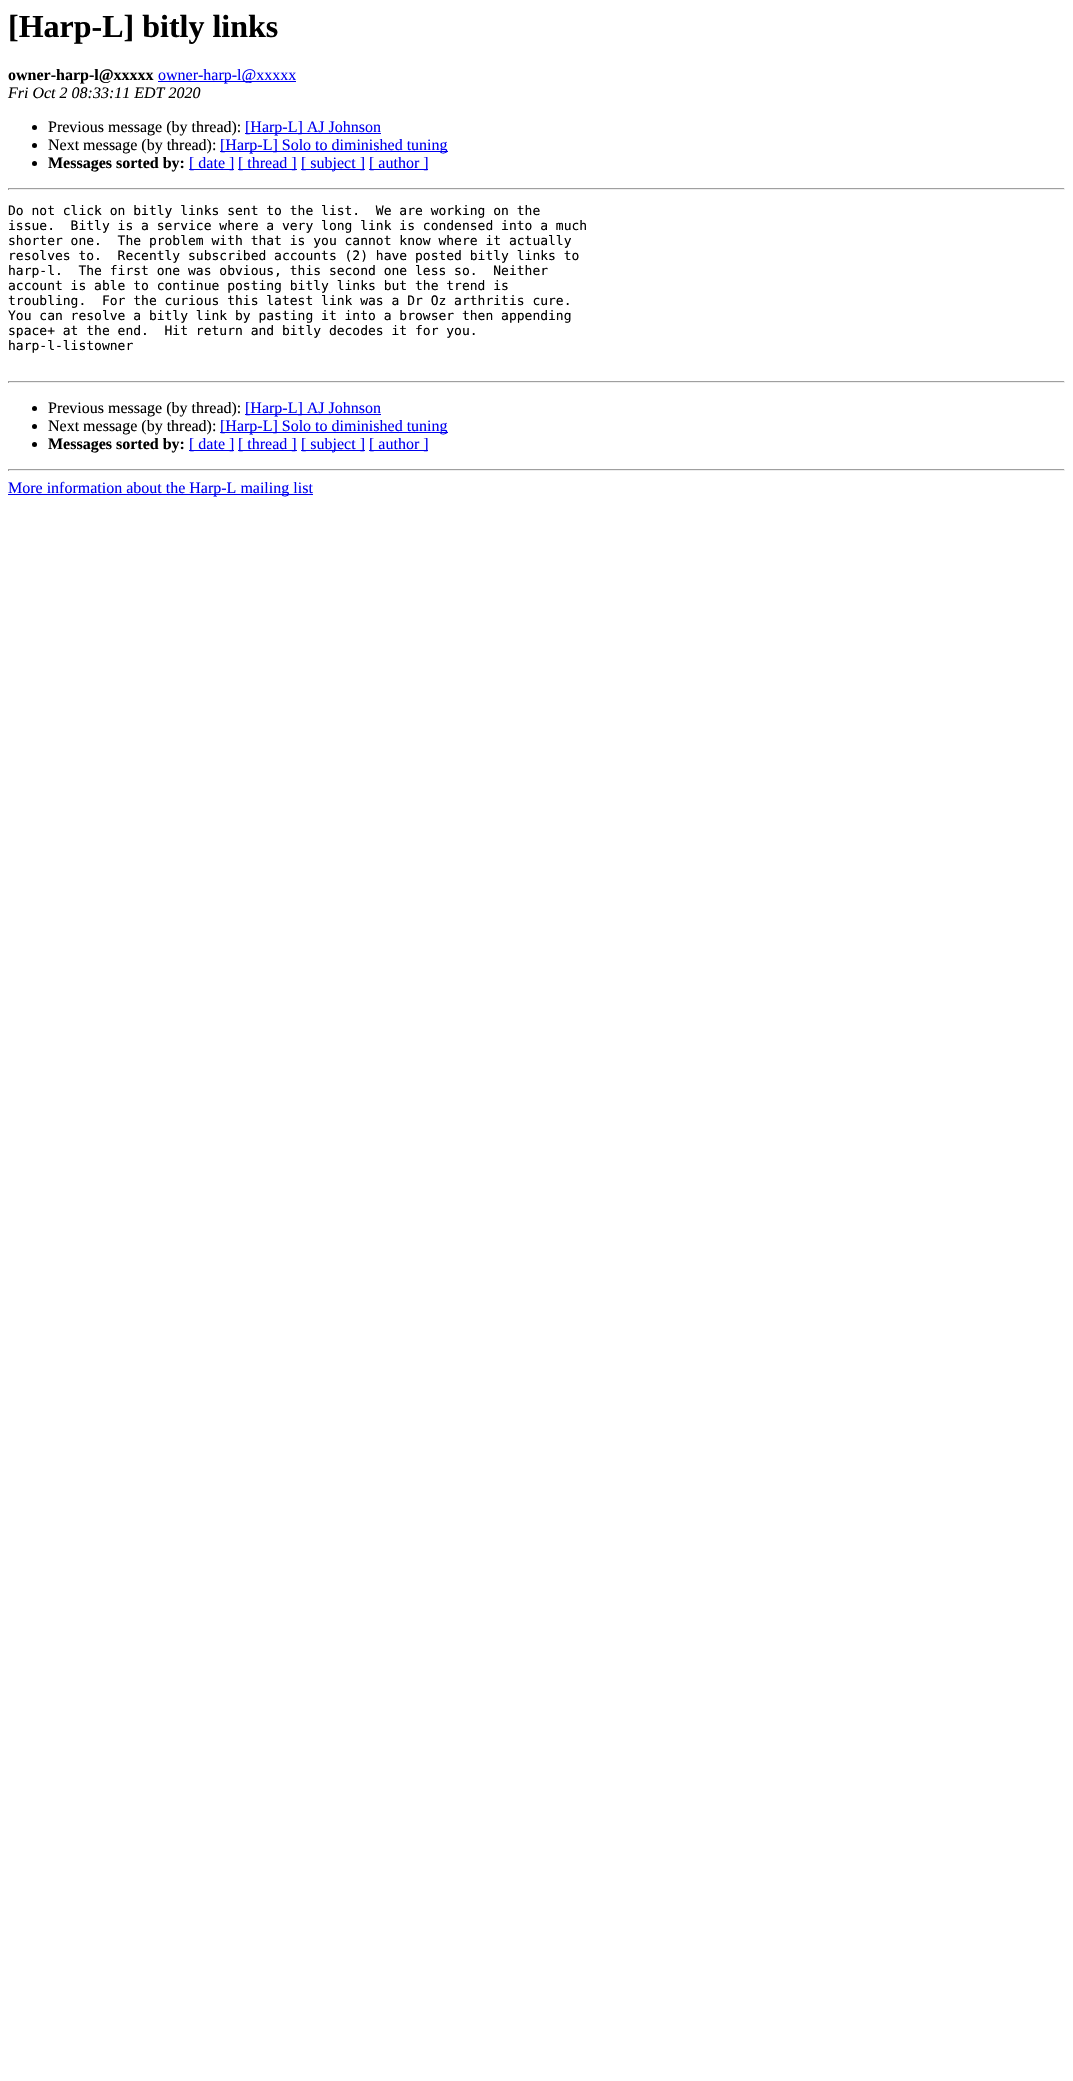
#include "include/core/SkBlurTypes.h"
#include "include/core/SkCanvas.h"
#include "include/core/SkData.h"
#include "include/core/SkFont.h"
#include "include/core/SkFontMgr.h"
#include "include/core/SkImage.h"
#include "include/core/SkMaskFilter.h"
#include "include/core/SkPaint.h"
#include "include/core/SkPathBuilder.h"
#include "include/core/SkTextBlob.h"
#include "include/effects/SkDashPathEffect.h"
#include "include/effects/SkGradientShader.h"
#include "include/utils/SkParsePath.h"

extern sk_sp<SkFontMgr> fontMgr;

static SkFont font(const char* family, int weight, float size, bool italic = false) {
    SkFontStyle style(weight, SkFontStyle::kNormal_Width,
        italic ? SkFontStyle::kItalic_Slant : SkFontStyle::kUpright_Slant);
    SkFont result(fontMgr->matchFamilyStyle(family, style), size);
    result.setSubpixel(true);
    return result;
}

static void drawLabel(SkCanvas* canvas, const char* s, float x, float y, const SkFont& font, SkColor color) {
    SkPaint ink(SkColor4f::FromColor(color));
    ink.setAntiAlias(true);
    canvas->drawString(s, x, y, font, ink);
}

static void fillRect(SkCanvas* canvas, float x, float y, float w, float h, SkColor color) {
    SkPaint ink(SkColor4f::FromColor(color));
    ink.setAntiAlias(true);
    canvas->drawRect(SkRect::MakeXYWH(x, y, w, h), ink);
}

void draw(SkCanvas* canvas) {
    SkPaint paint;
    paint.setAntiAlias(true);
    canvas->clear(0xFFFFFFFF);
    SkFont font1 = font("Liberation Serif", 700, 32);
    drawLabel(canvas, "[Harp-L] bitly links", 8, 37, font1, 0xFF000000);
    SkFont font2 = font("Liberation Serif", 700, 16);
    drawLabel(canvas, "owner-harp-l@xxxxx", 8, 80, font2, 0xFF000000);
    fillRect(canvas, 158, 81, 138, 1, 0xFF0000EE);
    SkFont font3 = font("Liberation Serif", 400, 16);
    drawLabel(canvas, "owner-harp-l@xxxxx", 158, 80, font3, 0xFF0000EE);
    SkFont font4 = font("Liberation Serif", 400, 16, true);
    drawLabel(canvas, "Fri Oct 2 08:33:11 EDT 2020", 8, 98, font4, 0xFF000000);
    paint.setColor(0xFF000000);
    canvas->drawCircle(34.5f, 127.5f, 2.5f, paint);
    drawLabel(canvas, "Previous message (by thread):", 48, 132, font3, 0xFF000000);
    fillRect(canvas, 245, 133, 136, 1, 0xFF0000EE);
    drawLabel(canvas, "[Harp-L] AJ Johnson", 245, 132, font3, 0xFF0000EE);
    canvas->drawCircle(34.5f, 145.5f, 2.5f, paint);
    drawLabel(canvas, "Next message (by thread):", 48, 150, font3, 0xFF000000);
    fillRect(canvas, 220, 151, 228, 1, 0xFF0000EE);
    drawLabel(canvas, "[Harp-L] Solo to diminished tuning", 220, 150, font3, 0xFF0000EE);
    canvas->drawCircle(34.5f, 163.5f, 2.5f, paint);
    drawLabel(canvas, "Messages sorted by:", 48, 168, font2, 0xFF000000);
    fillRect(canvas, 189, 169, 45, 1, 0xFF0000EE);
    drawLabel(canvas, "[ date ]", 189, 168, font3, 0xFF0000EE);
    fillRect(canvas, 238, 169, 59, 1, 0xFF0000EE);
    drawLabel(canvas, "[ thread ]", 238, 168, font3, 0xFF0000EE);
    fillRect(canvas, 301, 169, 64, 1, 0xFF0000EE);
    drawLabel(canvas, "[ subject ]", 301, 168, font3, 0xFF0000EE);
    fillRect(canvas, 369, 169, 59, 1, 0xFF0000EE);
    drawLabel(canvas, "[ author ]", 369, 168, font3, 0xFF0000EE);
    fillRect(canvas, 8, 188, 1057, 1, 0xFF9F9F9F);
    fillRect(canvas, 1064, 188, 1, 2, 0xFFEEEEEE);
    fillRect(canvas, 8, 189, 1057, 1, 0xFFEEEEEE);
    fillRect(canvas, 8, 188, 1, 2, 0xFF9F9F9F);
    SkFont font5 = font("DejaVu Sans Mono", 400, 13);
    drawLabel(canvas, "Do not click on bitly links sent to the list.  We are working on the", 8, 215, font5, 0xFF000000);
    drawLabel(canvas, "issue.  Bitly is a service where a very long link is condensed into a much", 8, 230, font5, 0xFF000000);
    drawLabel(canvas, "shorter one.  The problem with that is you cannot know where it actually", 8, 245, font5, 0xFF000000);
    drawLabel(canvas, "resolves to.  Recently subscribed accounts (2) have posted bitly links to", 8, 260, font5, 0xFF000000);
    drawLabel(canvas, "harp-l.  The first one was obvious, this second one less so.  Neither", 8, 275, font5, 0xFF000000);
    drawLabel(canvas, "account is able to continue posting bitly links but the trend is", 8, 290, font5, 0xFF000000);
    drawLabel(canvas, "troubling.  For the curious this latest link was a Dr Oz arthritis cure.", 8, 305, font5, 0xFF000000);
    drawLabel(canvas, "You can resolve a bitly link by pasting it into a browser then appending", 8, 320, font5, 0xFF000000);
    drawLabel(canvas, "space+ at the end.  Hit return and bitly decodes it for you.", 8, 335, font5, 0xFF000000);
    drawLabel(canvas, "harp-l-listowner", 8, 350, font5, 0xFF000000);
    fillRect(canvas, 8, 381, 1057, 1, 0xFF9F9F9F);
    fillRect(canvas, 1064, 381, 1, 2, 0xFFEEEEEE);
    fillRect(canvas, 8, 382, 1057, 1, 0xFFEEEEEE);
    fillRect(canvas, 8, 381, 1, 2, 0xFF9F9F9F);
    canvas->drawCircle(34.5f, 408.5f, 2.5f, paint);
    drawLabel(canvas, "Previous message (by thread):", 48, 413, font3, 0xFF000000);
    fillRect(canvas, 245, 414, 136, 1, 0xFF0000EE);
    drawLabel(canvas, "[Harp-L] AJ Johnson", 245, 413, font3, 0xFF0000EE);
    canvas->drawCircle(34.5f, 426.5f, 2.5f, paint);
    drawLabel(canvas, "Next message (by thread):", 48, 431, font3, 0xFF000000);
    fillRect(canvas, 220, 432, 228, 1, 0xFF0000EE);
    drawLabel(canvas, "[Harp-L] Solo to diminished tuning", 220, 431, font3, 0xFF0000EE);
    canvas->drawCircle(34.5f, 444.5f, 2.5f, paint);
    drawLabel(canvas, "Messages sorted by:", 48, 449, font2, 0xFF000000);
    fillRect(canvas, 189, 450, 45, 1, 0xFF0000EE);
    drawLabel(canvas, "[ date ]", 189, 449, font3, 0xFF0000EE);
    fillRect(canvas, 238, 450, 59, 1, 0xFF0000EE);
    drawLabel(canvas, "[ thread ]", 238, 449, font3, 0xFF0000EE);
    fillRect(canvas, 301, 450, 64, 1, 0xFF0000EE);
    drawLabel(canvas, "[ subject ]", 301, 449, font3, 0xFF0000EE);
    fillRect(canvas, 369, 450, 59, 1, 0xFF0000EE);
    drawLabel(canvas, "[ author ]", 369, 449, font3, 0xFF0000EE);
    fillRect(canvas, 8, 469, 1057, 1, 0xFF9F9F9F);
    fillRect(canvas, 1064, 469, 1, 2, 0xFFEEEEEE);
    fillRect(canvas, 8, 470, 1057, 1, 0xFFEEEEEE);
    fillRect(canvas, 8, 469, 1, 2, 0xFF9F9F9F);
    fillRect(canvas, 8, 494, 305, 1, 0xFF0000EE);
    drawLabel(canvas, "More information about the Harp-L mailing list", 8, 493, font3, 0xFF0000EE);
}
